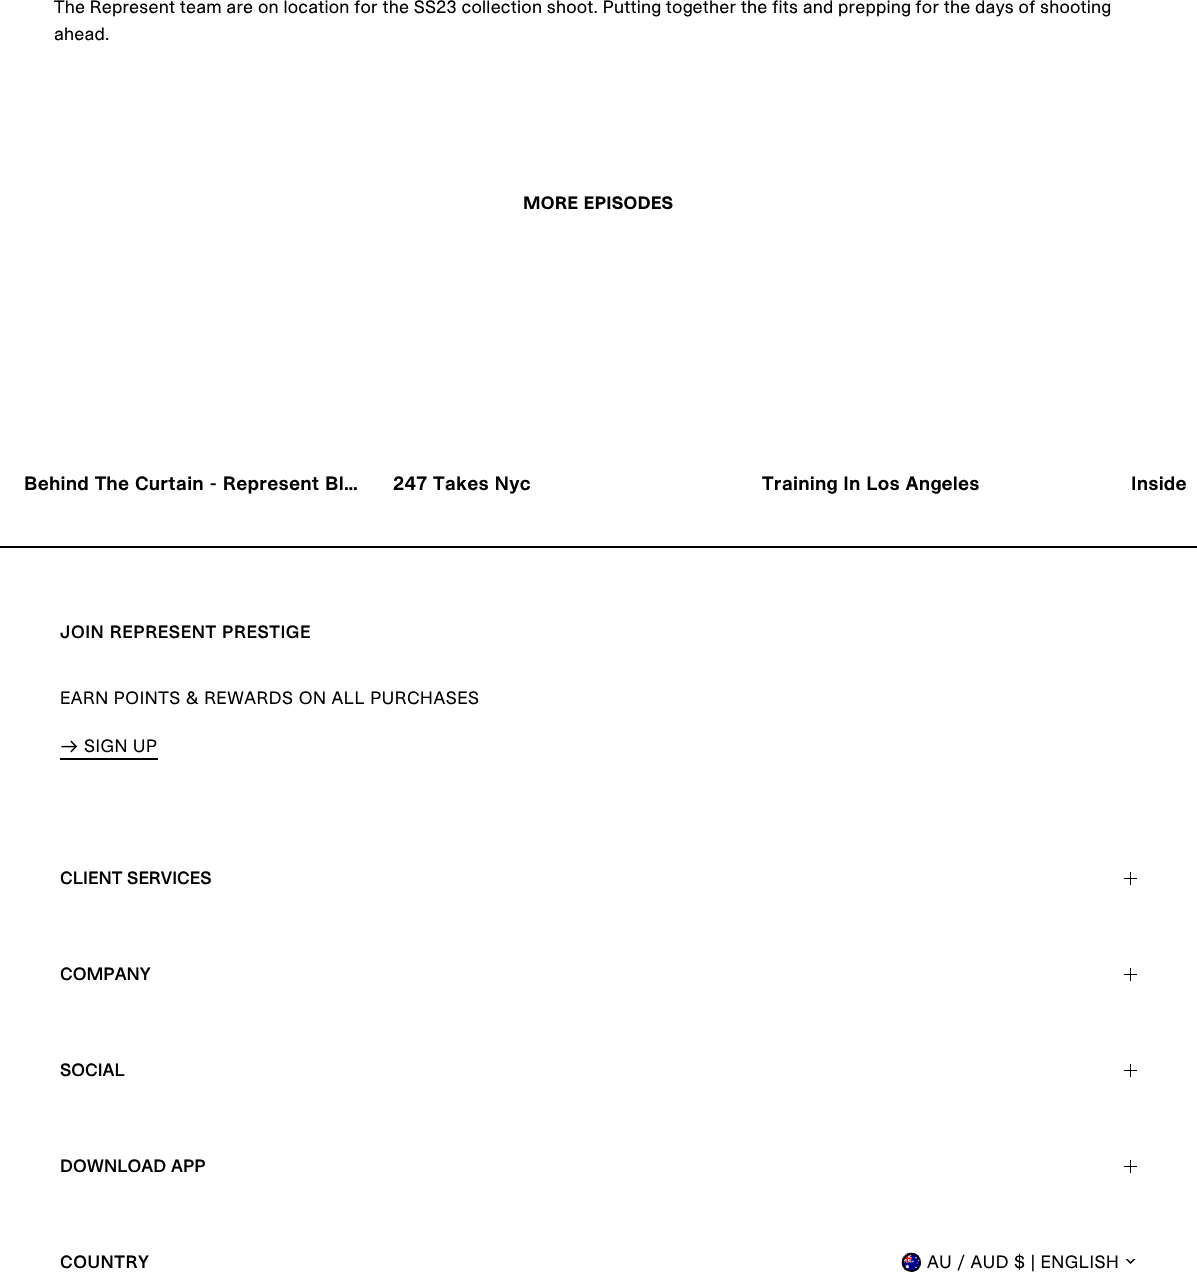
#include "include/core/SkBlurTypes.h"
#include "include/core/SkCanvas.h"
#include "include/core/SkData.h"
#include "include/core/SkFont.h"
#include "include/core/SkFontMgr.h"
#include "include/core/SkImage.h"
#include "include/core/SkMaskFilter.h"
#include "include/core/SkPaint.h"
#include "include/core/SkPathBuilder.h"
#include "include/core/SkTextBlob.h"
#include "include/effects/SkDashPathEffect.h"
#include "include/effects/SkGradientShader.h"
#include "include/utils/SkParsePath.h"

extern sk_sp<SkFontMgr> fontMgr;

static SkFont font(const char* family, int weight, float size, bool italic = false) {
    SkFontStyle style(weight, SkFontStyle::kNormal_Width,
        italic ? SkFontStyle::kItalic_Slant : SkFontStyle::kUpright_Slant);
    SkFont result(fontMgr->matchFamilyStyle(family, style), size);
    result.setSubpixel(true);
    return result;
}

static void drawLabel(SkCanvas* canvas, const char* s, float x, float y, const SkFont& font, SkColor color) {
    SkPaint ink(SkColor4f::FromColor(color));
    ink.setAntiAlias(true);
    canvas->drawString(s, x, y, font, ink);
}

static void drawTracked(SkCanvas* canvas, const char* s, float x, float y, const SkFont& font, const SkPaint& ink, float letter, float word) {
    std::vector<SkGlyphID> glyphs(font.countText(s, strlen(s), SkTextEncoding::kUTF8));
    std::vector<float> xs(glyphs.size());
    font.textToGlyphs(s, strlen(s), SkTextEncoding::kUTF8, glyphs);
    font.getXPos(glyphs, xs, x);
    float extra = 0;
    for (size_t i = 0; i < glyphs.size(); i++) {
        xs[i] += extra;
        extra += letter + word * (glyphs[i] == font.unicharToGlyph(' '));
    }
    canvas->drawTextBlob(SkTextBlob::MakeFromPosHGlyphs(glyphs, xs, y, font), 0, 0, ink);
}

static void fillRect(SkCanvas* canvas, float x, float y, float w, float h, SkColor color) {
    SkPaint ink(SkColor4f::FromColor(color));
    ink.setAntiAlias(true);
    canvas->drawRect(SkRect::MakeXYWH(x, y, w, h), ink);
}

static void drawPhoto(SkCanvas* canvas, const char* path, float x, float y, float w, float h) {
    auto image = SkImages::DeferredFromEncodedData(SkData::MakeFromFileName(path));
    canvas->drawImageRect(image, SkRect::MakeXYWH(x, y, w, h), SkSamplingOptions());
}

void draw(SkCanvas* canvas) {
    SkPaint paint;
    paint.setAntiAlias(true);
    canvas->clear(0xFFFFFFFF);
    SkFont font1 = font("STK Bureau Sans", 400, 18);
    paint.setColor(0xFF000000);
    drawTracked(canvas, "The Represent team are on location for the SS23 collection shoot. Putting together the fits and prepping for the days of shooting", 54, 13, font1, paint, 0.2f, 0);
    drawTracked(canvas, "ahead.", 54, 40, font1, paint, 0.2f, 0);
    SkFont font2 = font("STK Bureau Sans", 700, 18);
    drawTracked(canvas, "MORE EPISODES", 523, 209, font2, paint, 0.2f, 0);
    SkFont font3 = font("STK Bureau Sans", 600, 19.5f);
    drawTracked(canvas, "Behind The Curtain - Represent Bl…", 24, 490, font3, paint, 0.2f, 0);
    drawTracked(canvas, "247 Takes Nyc", 393, 490, font3, paint, 0.2f, 0);
    drawTracked(canvas, "Training In Los Angeles", 762, 490, font3, paint, 0.2f, 0);
    drawTracked(canvas, "Inside", 1131, 490, font3, paint, 0.2f, 0);
    fillRect(canvas, 0, 546, 1197, 2, 0xFF000000);
    SkFont font4 = font("STK Bureau Sans", 500, 18);
    drawTracked(canvas, "JOIN REPRESENT PRESTIGE", 60, 638, font4, paint, 0.55f, 0);
    drawTracked(canvas, "EARN POINTS & REWARDS ON ALL PURCHASES", 60, 704, font1, paint, 0.55f, 0);
    drawPhoto(canvas, "assets/img1.png", 61, 740, 16, 13);
    drawTracked(canvas, "SIGN UP", 84, 752, font1, paint, 0.55f, 0);
    fillRect(canvas, 60, 758, 98, 2, 0xFF000000);
    drawLabel(canvas, "CLIENT SERVICES", 60, 884, font4, 0xFF000000);
    fillRect(canvas, 1130, 872, 1, 13, 0xFF000000);
    fillRect(canvas, 1124, 878, 13, 1, 0xFF000000);
    drawLabel(canvas, "COMPANY", 60, 980, font4, 0xFF000000);
    fillRect(canvas, 1130, 968, 1, 13, 0xFF000000);
    fillRect(canvas, 1124, 974, 13, 1, 0xFF000000);
    drawLabel(canvas, "SOCIAL", 60, 1076, font4, 0xFF000000);
    fillRect(canvas, 1130, 1064, 1, 13, 0xFF000000);
    fillRect(canvas, 1124, 1070, 13, 1, 0xFF000000);
    drawLabel(canvas, "DOWNLOAD APP", 60, 1172, font4, 0xFF000000);
    fillRect(canvas, 1130, 1160, 1, 13, 0xFF000000);
    fillRect(canvas, 1124, 1166, 13, 1, 0xFF000000);
    drawTracked(canvas, "COUNTRY", 60, 1268, font4, paint, 0.55f, 0);
    drawPhoto(canvas, "assets/img2.png", 901, 1252, 20, 20);
    paint.setStroke(true);
    paint.setStrokeWidth(2);
    canvas->drawCircle(911.5f, 1262.5f, 8.5f, paint);
    paint.setStroke(false);
    drawTracked(canvas, "AU / AUD $ | ENGLISH", 927, 1268, font1, paint, 0.55f, 0);
    drawPhoto(canvas, "assets/img3.png", 1125, 1259, 11, 5);
}
